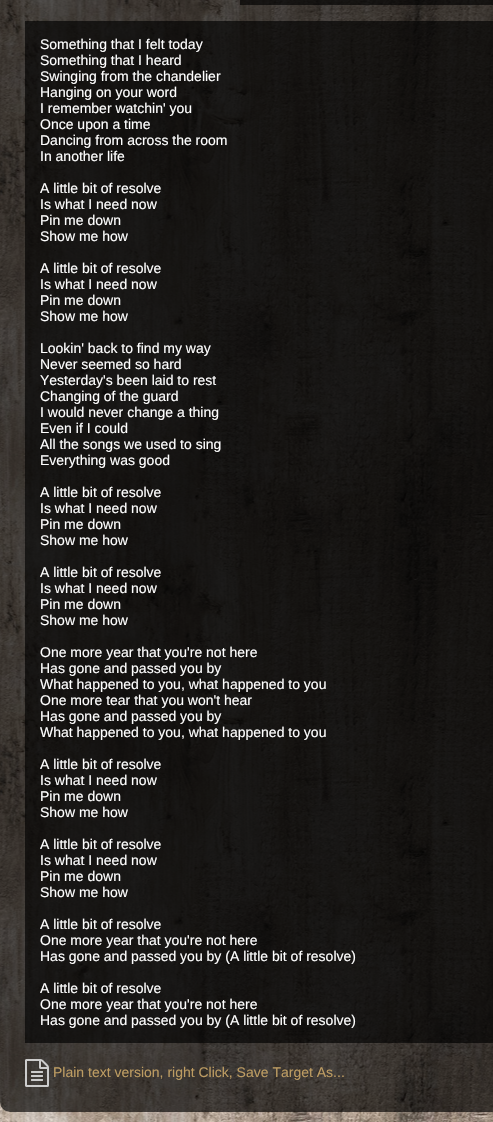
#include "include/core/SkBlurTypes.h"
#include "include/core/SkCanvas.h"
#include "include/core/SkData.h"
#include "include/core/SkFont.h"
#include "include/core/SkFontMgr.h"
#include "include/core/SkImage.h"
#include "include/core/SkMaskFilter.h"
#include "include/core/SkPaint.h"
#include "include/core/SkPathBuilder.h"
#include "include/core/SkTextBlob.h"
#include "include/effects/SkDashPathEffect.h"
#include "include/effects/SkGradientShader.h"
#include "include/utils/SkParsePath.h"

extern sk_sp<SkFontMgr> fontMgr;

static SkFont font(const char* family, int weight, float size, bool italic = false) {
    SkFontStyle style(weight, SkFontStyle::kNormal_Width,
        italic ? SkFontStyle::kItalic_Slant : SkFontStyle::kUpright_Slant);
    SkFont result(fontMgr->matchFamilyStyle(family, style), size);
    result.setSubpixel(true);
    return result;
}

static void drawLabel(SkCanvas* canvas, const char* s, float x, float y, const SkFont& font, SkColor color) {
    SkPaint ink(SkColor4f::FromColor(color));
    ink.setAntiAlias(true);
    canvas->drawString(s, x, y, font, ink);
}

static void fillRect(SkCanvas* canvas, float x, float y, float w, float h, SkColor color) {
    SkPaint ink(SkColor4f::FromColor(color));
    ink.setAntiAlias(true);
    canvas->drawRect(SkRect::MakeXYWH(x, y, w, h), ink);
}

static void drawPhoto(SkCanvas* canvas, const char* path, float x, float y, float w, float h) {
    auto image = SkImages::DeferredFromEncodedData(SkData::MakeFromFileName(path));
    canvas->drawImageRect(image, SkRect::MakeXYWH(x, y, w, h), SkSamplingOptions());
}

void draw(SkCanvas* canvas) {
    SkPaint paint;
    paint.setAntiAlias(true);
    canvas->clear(0xFFFFFFFF);
    drawPhoto(canvas, "assets/img1.png", 0, 0, 493, 1122);
    drawPhoto(canvas, "assets/img2.png", 0, 0, 493, 1112);
    fillRect(canvas, 240, 0, 253, 5, 0xA8000000);
    fillRect(canvas, 25, 21, 468, 1022, 0xA8000000);
    SkFont font1 = font("Liberation Sans", 400, 14);
    drawLabel(canvas, "Something that I felt today", 40, 49, font1, 0xFFFFFFFF);
    drawLabel(canvas, "Something that I heard", 40, 65, font1, 0xFFFFFFFF);
    drawLabel(canvas, "Swinging from the chandelier", 40, 81, font1, 0xFFFFFFFF);
    drawLabel(canvas, "Hanging on your word", 40, 97, font1, 0xFFFFFFFF);
    drawLabel(canvas, "I remember watchin' you", 40, 113, font1, 0xFFFFFFFF);
    drawLabel(canvas, "Once upon a time", 40, 129, font1, 0xFFFFFFFF);
    drawLabel(canvas, "Dancing from across the room", 40, 145, font1, 0xFFFFFFFF);
    drawLabel(canvas, "In another life", 40, 161, font1, 0xFFFFFFFF);
    drawLabel(canvas, "A little bit of resolve", 40, 193, font1, 0xFFFFFFFF);
    drawLabel(canvas, "Is what I need now", 40, 209, font1, 0xFFFFFFFF);
    drawLabel(canvas, "Pin me down", 40, 225, font1, 0xFFFFFFFF);
    drawLabel(canvas, "Show me how", 40, 241, font1, 0xFFFFFFFF);
    drawLabel(canvas, "A little bit of resolve", 40, 273, font1, 0xFFFFFFFF);
    drawLabel(canvas, "Is what I need now", 40, 289, font1, 0xFFFFFFFF);
    drawLabel(canvas, "Pin me down", 40, 305, font1, 0xFFFFFFFF);
    drawLabel(canvas, "Show me how", 40, 321, font1, 0xFFFFFFFF);
    drawLabel(canvas, "Lookin' back to find my way", 40, 353, font1, 0xFFFFFFFF);
    drawLabel(canvas, "Never seemed so hard", 40, 369, font1, 0xFFFFFFFF);
    drawLabel(canvas, "Yesterday's been laid to rest", 40, 385, font1, 0xFFFFFFFF);
    drawLabel(canvas, "Changing of the guard", 40, 401, font1, 0xFFFFFFFF);
    drawLabel(canvas, "I would never change a thing", 40, 417, font1, 0xFFFFFFFF);
    drawLabel(canvas, "Even if I could", 40, 433, font1, 0xFFFFFFFF);
    drawLabel(canvas, "All the songs we used to sing", 40, 449, font1, 0xFFFFFFFF);
    drawLabel(canvas, "Everything was good", 40, 465, font1, 0xFFFFFFFF);
    drawLabel(canvas, "A little bit of resolve", 40, 497, font1, 0xFFFFFFFF);
    drawLabel(canvas, "Is what I need now", 40, 513, font1, 0xFFFFFFFF);
    drawLabel(canvas, "Pin me down", 40, 529, font1, 0xFFFFFFFF);
    drawLabel(canvas, "Show me how", 40, 545, font1, 0xFFFFFFFF);
    drawLabel(canvas, "A little bit of resolve", 40, 577, font1, 0xFFFFFFFF);
    drawLabel(canvas, "Is what I need now", 40, 593, font1, 0xFFFFFFFF);
    drawLabel(canvas, "Pin me down", 40, 609, font1, 0xFFFFFFFF);
    drawLabel(canvas, "Show me how", 40, 625, font1, 0xFFFFFFFF);
    drawLabel(canvas, "One more year that you're not here", 40, 657, font1, 0xFFFFFFFF);
    drawLabel(canvas, "Has gone and passed you by", 40, 673, font1, 0xFFFFFFFF);
    drawLabel(canvas, "What happened to you, what happened to you", 40, 689, font1, 0xFFFFFFFF);
    drawLabel(canvas, "One more tear that you won't hear", 40, 705, font1, 0xFFFFFFFF);
    drawLabel(canvas, "Has gone and passed you by", 40, 721, font1, 0xFFFFFFFF);
    drawLabel(canvas, "What happened to you, what happened to you", 40, 737, font1, 0xFFFFFFFF);
    drawLabel(canvas, "A little bit of resolve", 40, 769, font1, 0xFFFFFFFF);
    drawLabel(canvas, "Is what I need now", 40, 785, font1, 0xFFFFFFFF);
    drawLabel(canvas, "Pin me down", 40, 801, font1, 0xFFFFFFFF);
    drawLabel(canvas, "Show me how", 40, 817, font1, 0xFFFFFFFF);
    drawLabel(canvas, "A little bit of resolve", 40, 849, font1, 0xFFFFFFFF);
    drawLabel(canvas, "Is what I need now", 40, 865, font1, 0xFFFFFFFF);
    drawLabel(canvas, "Pin me down", 40, 881, font1, 0xFFFFFFFF);
    drawLabel(canvas, "Show me how", 40, 897, font1, 0xFFFFFFFF);
    drawLabel(canvas, "A little bit of resolve", 40, 929, font1, 0xFFFFFFFF);
    drawLabel(canvas, "One more year that you're not here", 40, 945, font1, 0xFFFFFFFF);
    drawLabel(canvas, "Has gone and passed you by (A little bit of resolve)", 40, 961, font1, 0xFFFFFFFF);
    drawLabel(canvas, "A little bit of resolve", 40, 993, font1, 0xFFFFFFFF);
    drawLabel(canvas, "One more year that you're not here", 40, 1009, font1, 0xFFFFFFFF);
    drawLabel(canvas, "Has gone and passed you by (A little bit of resolve)", 40, 1025, font1, 0xFFFFFFFF);
    drawPhoto(canvas, "assets/img3.png", 25, 1059, 24, 28);
    drawLabel(canvas, "Plain text version, right Click, Save Target As...", 53, 1077, font1, 0xFFBD9C62);
}
